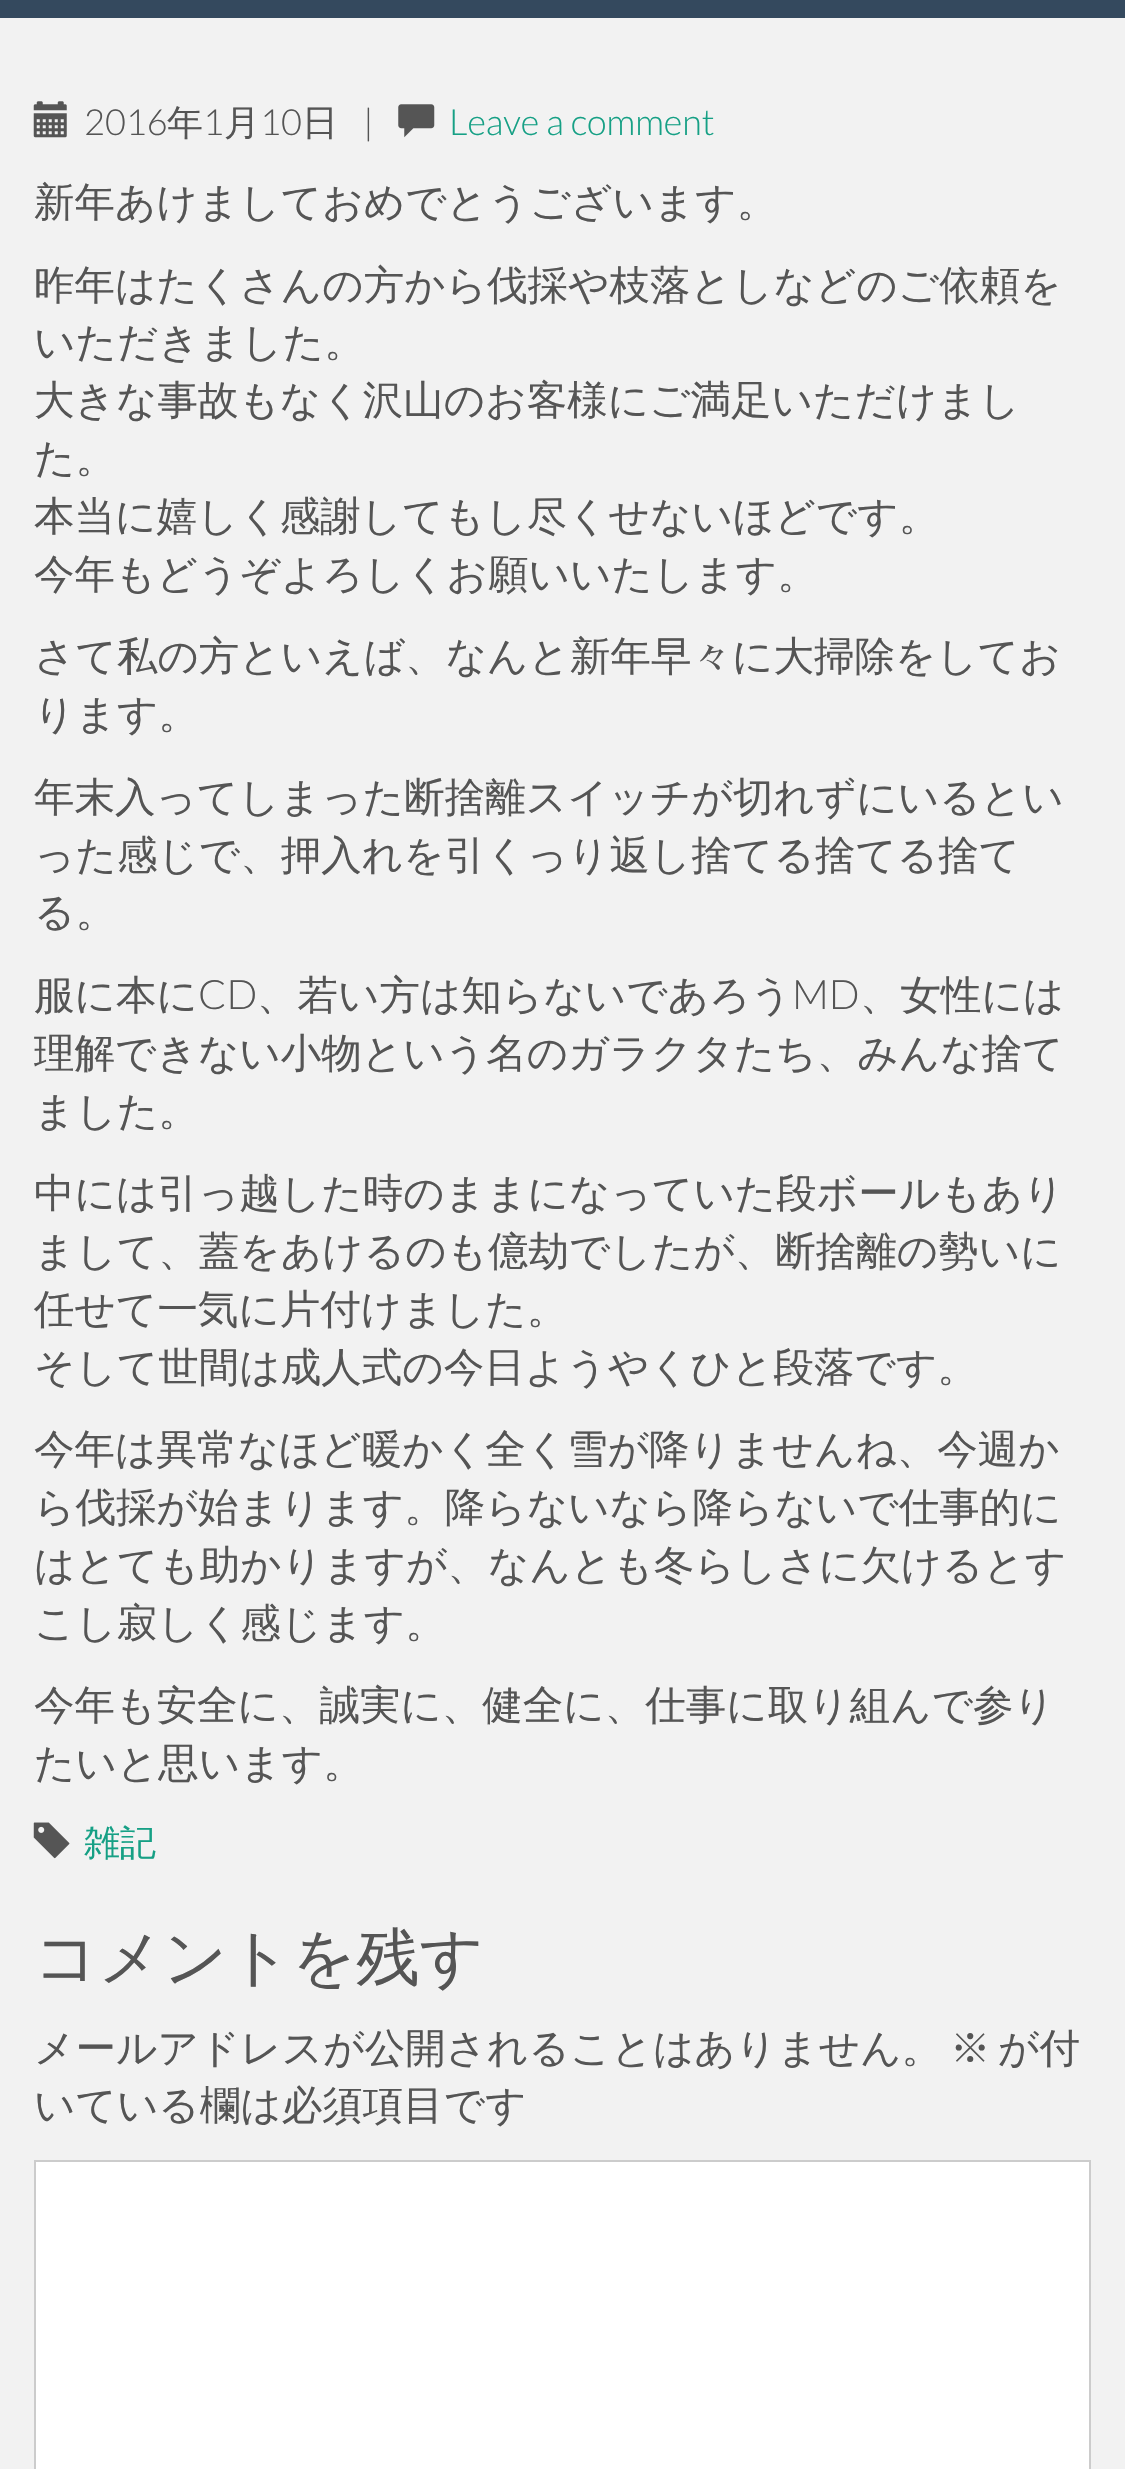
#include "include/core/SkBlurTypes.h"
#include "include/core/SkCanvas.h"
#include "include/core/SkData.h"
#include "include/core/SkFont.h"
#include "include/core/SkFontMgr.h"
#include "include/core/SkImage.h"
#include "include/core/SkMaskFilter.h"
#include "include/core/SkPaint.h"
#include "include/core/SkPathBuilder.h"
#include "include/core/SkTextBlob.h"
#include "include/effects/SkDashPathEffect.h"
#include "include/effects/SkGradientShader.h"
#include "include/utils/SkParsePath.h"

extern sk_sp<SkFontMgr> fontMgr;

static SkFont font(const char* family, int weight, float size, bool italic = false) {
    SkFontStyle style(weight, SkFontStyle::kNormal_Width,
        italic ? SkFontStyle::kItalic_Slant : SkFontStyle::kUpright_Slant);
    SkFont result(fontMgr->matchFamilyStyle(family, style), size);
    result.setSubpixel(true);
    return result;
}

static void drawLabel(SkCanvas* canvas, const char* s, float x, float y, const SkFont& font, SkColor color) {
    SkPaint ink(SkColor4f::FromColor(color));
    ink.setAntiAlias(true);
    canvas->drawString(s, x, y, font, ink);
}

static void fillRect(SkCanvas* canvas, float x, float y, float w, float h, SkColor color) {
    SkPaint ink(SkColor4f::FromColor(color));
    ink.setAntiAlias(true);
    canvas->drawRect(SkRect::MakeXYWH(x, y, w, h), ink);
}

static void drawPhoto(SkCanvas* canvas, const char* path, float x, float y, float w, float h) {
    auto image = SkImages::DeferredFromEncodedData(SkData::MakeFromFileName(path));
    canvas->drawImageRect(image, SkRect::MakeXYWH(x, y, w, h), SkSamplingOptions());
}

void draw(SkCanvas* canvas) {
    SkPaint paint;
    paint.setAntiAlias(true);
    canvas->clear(0xFFF2F2F2);
    fillRect(canvas, 0, 0, 1125, 18, 0xFF34495E);
    drawPhoto(canvas, "assets/img1.png", 33, 101, 34, 37);
    SkFont font1 = font("Lato", 300, 36);
    drawLabel(canvas, "2016", 84, 135, font1, 0xFF555555);
    SkFont font2 = font("WenQuanYi Zen Hei", 500, 36);
    drawLabel(canvas, "年", 167, 135, font2, 0xFF555555);
    drawLabel(canvas, "1", 203, 135, font1, 0xFF555555);
    drawLabel(canvas, "月", 224, 135, font2, 0xFF555555);
    drawLabel(canvas, "10", 260, 135, font1, 0xFF555555);
    drawLabel(canvas, "日", 302, 135, font2, 0xFF555555);
    drawLabel(canvas, "|", 363, 135, font1, 0xFF555555);
    drawPhoto(canvas, "assets/img2.png", 398, 104, 37, 34);
    drawLabel(canvas, "Leave a comment", 449, 135, font1, 0xFF16A085);
    SkFont font3 = font("WenQuanYi Zen Hei", 500, 40.5f);
    drawLabel(canvas, "新年あけましておめでとうございます。", 34, 216, font3, 0xFF555555);
    drawLabel(canvas, "昨年はたくさんの方から伐採や枝落としなどのご依頼を", 34, 299, font3, 0xFF555555);
    drawLabel(canvas, "いただきました。", 34, 356, font3, 0xFF555555);
    drawLabel(canvas, "大きな事故もなく沢山のお客様にご満足いただけまし", 34, 414, font3, 0xFF555555);
    drawLabel(canvas, "た。", 34, 472, font3, 0xFF555555);
    drawLabel(canvas, "本当に嬉しく感謝してもし尽くせないほどです。", 34, 530, font3, 0xFF555555);
    drawLabel(canvas, "今年もどうぞよろしくお願いいたします。", 34, 588, font3, 0xFF555555);
    drawLabel(canvas, "さて私の方といえば、なんと新年早々に大掃除をしてお", 34, 670, font3, 0xFF555555);
    drawLabel(canvas, "ります。", 34, 728, font3, 0xFF555555);
    drawLabel(canvas, "年末入ってしまった断捨離スイッチが切れずにいるとい", 34, 811, font3, 0xFF555555);
    drawLabel(canvas, "った感じで、押入れを引くっり返し捨てる捨てる捨て", 34, 869, font3, 0xFF555555);
    drawLabel(canvas, "る。", 34, 926, font3, 0xFF555555);
    drawLabel(canvas, "服に本に", 34, 1009, font3, 0xFF555555);
    SkFont font4 = font("Lato", 300, 40.5f);
    drawLabel(canvas, "CD", 198, 1009, font4, 0xFF555555);
    drawLabel(canvas, "、若い方は知らないであろう", 257, 1009, font3, 0xFF555555);
    drawLabel(canvas, "MD", 792, 1009, font4, 0xFF555555);
    drawLabel(canvas, "、女性には", 860, 1009, font3, 0xFF555555);
    drawLabel(canvas, "理解できない小物という名のガラクタたち、みんな捨て", 34, 1067, font3, 0xFF555555);
    drawLabel(canvas, "ました。", 34, 1125, font3, 0xFF555555);
    drawLabel(canvas, "中には引っ越した時のままになっていた段ボールもあり", 34, 1207, font3, 0xFF555555);
    drawLabel(canvas, "まして、蓋をあけるのも億劫でしたが、断捨離の勢いに", 34, 1265, font3, 0xFF555555);
    drawLabel(canvas, "任せて一気に片付けました。", 34, 1323, font3, 0xFF555555);
    drawLabel(canvas, "そして世間は成人式の今日ようやくひと段落です。", 34, 1381, font3, 0xFF555555);
    drawLabel(canvas, "今年は異常なほど暖かく全く雪が降りませんね、今週か", 34, 1463, font3, 0xFF555555);
    drawLabel(canvas, "ら伐採が始まります。降らないなら降らないで仕事的に", 34, 1521, font3, 0xFF555555);
    drawLabel(canvas, "はとても助かりますが、なんとも冬らしさに欠けるとす", 34, 1579, font3, 0xFF555555);
    drawLabel(canvas, "こし寂しく感じます。", 34, 1637, font3, 0xFF555555);
    drawLabel(canvas, "今年も安全に、誠実に、健全に、仕事に取り組んで参り", 34, 1719, font3, 0xFF555555);
    drawLabel(canvas, "たいと思います。", 34, 1777, font3, 0xFF555555);
    drawPhoto(canvas, "assets/img3.png", 33, 1822, 37, 37);
    drawLabel(canvas, "雑記", 84, 1855, font2, 0xFF16A085);
    SkFont font5 = font("WenQuanYi Zen Hei", 500, 63);
    drawLabel(canvas, "コメントを残す", 34, 1979, font5, 0xFF555555);
    drawLabel(canvas, "メールアドレスが公開されることはありません。", 34, 2062, font3, 0xFF555555);
    drawLabel(canvas, "※", 950, 2062, font3, 0xFF555555);
    drawLabel(canvas, "が付", 998, 2062, font3, 0xFF555555);
    drawLabel(canvas, "いている欄は必須項目です", 34, 2119, font3, 0xFF555555);
    paint.setColor(0xFFFFFFFF);
    canvas->drawRect(SkRect::MakeXYWH(35, 2161, 1055, 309), paint);
    paint.setStroke(true);
    paint.setStrokeWidth(2);
    paint.setColor(0xFFCCCCCC);
    canvas->drawRect(SkRect::MakeXYWH(35, 2161, 1055, 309), paint);
}
